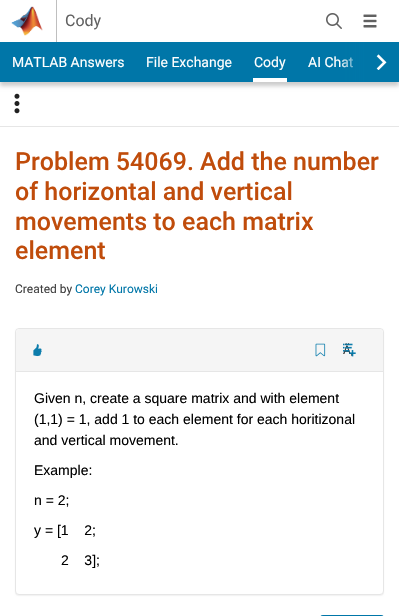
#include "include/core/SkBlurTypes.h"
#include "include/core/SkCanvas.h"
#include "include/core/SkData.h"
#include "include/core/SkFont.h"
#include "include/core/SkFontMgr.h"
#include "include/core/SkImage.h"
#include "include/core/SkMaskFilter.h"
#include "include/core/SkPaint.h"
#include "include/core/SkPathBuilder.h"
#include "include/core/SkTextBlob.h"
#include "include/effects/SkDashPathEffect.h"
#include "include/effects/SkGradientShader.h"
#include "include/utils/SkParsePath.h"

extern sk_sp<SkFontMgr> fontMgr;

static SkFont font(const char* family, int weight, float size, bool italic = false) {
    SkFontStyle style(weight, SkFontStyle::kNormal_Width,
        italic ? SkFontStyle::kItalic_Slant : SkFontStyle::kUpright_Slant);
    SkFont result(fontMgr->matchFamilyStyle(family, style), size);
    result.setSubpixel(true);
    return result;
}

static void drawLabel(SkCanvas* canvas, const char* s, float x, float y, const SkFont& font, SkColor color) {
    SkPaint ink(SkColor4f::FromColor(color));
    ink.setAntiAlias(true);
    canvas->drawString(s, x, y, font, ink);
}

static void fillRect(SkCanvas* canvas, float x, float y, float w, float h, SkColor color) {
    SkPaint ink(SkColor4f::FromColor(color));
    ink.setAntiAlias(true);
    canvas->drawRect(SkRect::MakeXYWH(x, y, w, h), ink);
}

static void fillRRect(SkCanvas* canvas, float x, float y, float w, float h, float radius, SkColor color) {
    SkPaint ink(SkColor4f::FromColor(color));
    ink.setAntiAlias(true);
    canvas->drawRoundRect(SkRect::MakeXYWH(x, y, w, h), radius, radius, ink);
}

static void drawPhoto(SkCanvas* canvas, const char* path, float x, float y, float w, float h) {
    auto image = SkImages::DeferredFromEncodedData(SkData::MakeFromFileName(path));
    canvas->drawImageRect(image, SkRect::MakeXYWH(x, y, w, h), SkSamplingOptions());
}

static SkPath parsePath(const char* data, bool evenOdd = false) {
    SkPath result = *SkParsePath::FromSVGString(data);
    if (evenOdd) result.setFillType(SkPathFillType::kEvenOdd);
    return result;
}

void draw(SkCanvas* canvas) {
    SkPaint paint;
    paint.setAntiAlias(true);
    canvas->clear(0xFFFFFFFF);
    fillRect(canvas, 56, 0, 1, 42, 0xFFBFBFBF);
    drawPhoto(canvas, "assets/img1.png", 11, 6, 32, 30);
    SkFont font1 = font("Roboto", 400, 16);
    drawLabel(canvas, "Cody", 65, 26, font1, 0xFF616161);
    drawPhoto(canvas, "assets/img2.png", 326, 13, 16, 16);
    drawPhoto(canvas, "assets/img3.png", 363, 14, 14, 14);
    paint.setColor(0x33000000);
    paint.setMaskFilter(SkMaskFilter::MakeBlur(kNormal_SkBlurStyle, 2));
    canvas->drawRect(SkRect::MakeXYWH(0, 46, 399, 40), paint);
    paint.setMaskFilter(nullptr);
    fillRect(canvas, 0, 42, 364, 40, 0xFF0076A8);
    SkFont font2 = font("Roboto", 400, 14);
    drawLabel(canvas, "MATLAB Answers", 12, 67, font2, 0xFFFFFFFF);
    drawLabel(canvas, "File Exchange", 146, 67, font2, 0xFFFFFFFF);
    fillRect(canvas, 253, 78, 34, 4, 0xFFFFFFFF);
    drawLabel(canvas, "Cody", 254, 67, font2, 0xFFFFFFFF);
    drawLabel(canvas, "AI Chat", 308, 67, font2, 0xFFFFFFFF);
    {
        const SkColor colors[] = {0x000076A8, 0xFF0076A8, 0xFF0076A8};
        const float stops[] = {0, 0.5f, 1};
        const SkPoint ends[] = {{339, 62}, {389, 62}};
        paint.setShader(SkGradientShader::MakeLinear(ends, colors, stops, 3, SkTileMode::kClamp));
        paint.setAlpha(255);
    }
    canvas->drawRect(SkRect::MakeXYWH(341, 42, 46, 40), paint);
    drawPhoto(canvas, "assets/img4.png", 376, 54, 11, 16);
    fillRect(canvas, 387, 42, 12, 40, 0xFF0076A8);
    fillRect(canvas, 0, 126, 399, 1, 0xFFE6E6E6);
    drawPhoto(canvas, "assets/img5.png", 14, 93, 6, 21);
    SkFont font3 = font("Roboto", 500, 25);
    drawLabel(canvas, "Problem 54069. Add the number", 15, 170, font3, 0xFFC04C0B);
    drawLabel(canvas, "of horizontal and vertical", 15, 200, font3, 0xFFC04C0B);
    drawLabel(canvas, "movements to each matrix", 15, 230, font3, 0xFFC04C0B);
    drawLabel(canvas, "element", 15, 259, font3, 0xFFC04C0B);
    SkFont font4 = font("Roboto", 400, 12);
    drawLabel(canvas, "Created by", 15, 293, font4, 0xFF404040);
    drawLabel(canvas, "Corey Kurowski", 75, 293, font4, 0xFF0076A8);
    paint.setShader(nullptr);
    paint.setColor(0x0D000000);
    paint.setMaskFilter(SkMaskFilter::MakeBlur(kNormal_SkBlurStyle, 0.5f));
    canvas->drawRoundRect(SkRect::MakeXYWH(15, 329, 369, 267), 4, 4, paint);
    paint.setMaskFilter(nullptr);
    paint.setColor(0xFFFFFFFF);
    canvas->drawRoundRect(SkRect::MakeXYWH(15.5f, 328.5f, 368, 266), 3.5f, 3.5f, paint);
    paint.setStroke(true);
    paint.setStrokeWidth(1);
    paint.setColor(0xFFE6E6E6);
    canvas->drawRoundRect(SkRect::MakeXYWH(15.5f, 328.5f, 368, 266), 3.5f, 3.5f, paint);
    paint.setStroke(false);
    paint.setColor(0xFFF5F5F5);
    canvas->drawPath(parsePath("M20 329H379C381 329 383 331 383 333V372H16V333C16 331 18 329 20 329Z"), paint);
    fillRect(canvas, 16, 371, 367, 1, 0xFFE6E6E6);
    drawPhoto(canvas, "assets/img6.png", 33, 344, 9, 13);
    drawPhoto(canvas, "assets/img7.png", 315, 343, 11, 14);
    drawLabel(canvas, "Ã‚", 343, 354, font4, 0xFF333333);
    drawPhoto(canvas, "assets/img8.png", 343, 343, 13, 14);
    SkFont font5 = font("Liberation Sans", 400, 14);
    drawLabel(canvas, "Given n, create a square matrix and with element", 34, 403, font5, 0xFF000000);
    drawLabel(canvas, "(1,1) = 1, add 1 to each element for each horitizonal", 34, 424, font5, 0xFF000000);
    drawLabel(canvas, "and vertical movement.", 34, 445, font5, 0xFF000000);
    drawLabel(canvas, "Example:", 34, 475, font5, 0xFF000000);
    drawLabel(canvas, "n = 2;", 34, 505, font5, 0xFF000000);
    drawLabel(canvas, "y = [1    2;", 34, 535, font5, 0xFF000000);
    drawLabel(canvas, "2    3];", 61, 565, font5, 0xFF000000);
    fillRRect(canvas, 320, 615, 64, 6, 5, 0xFF0076A8);
}
